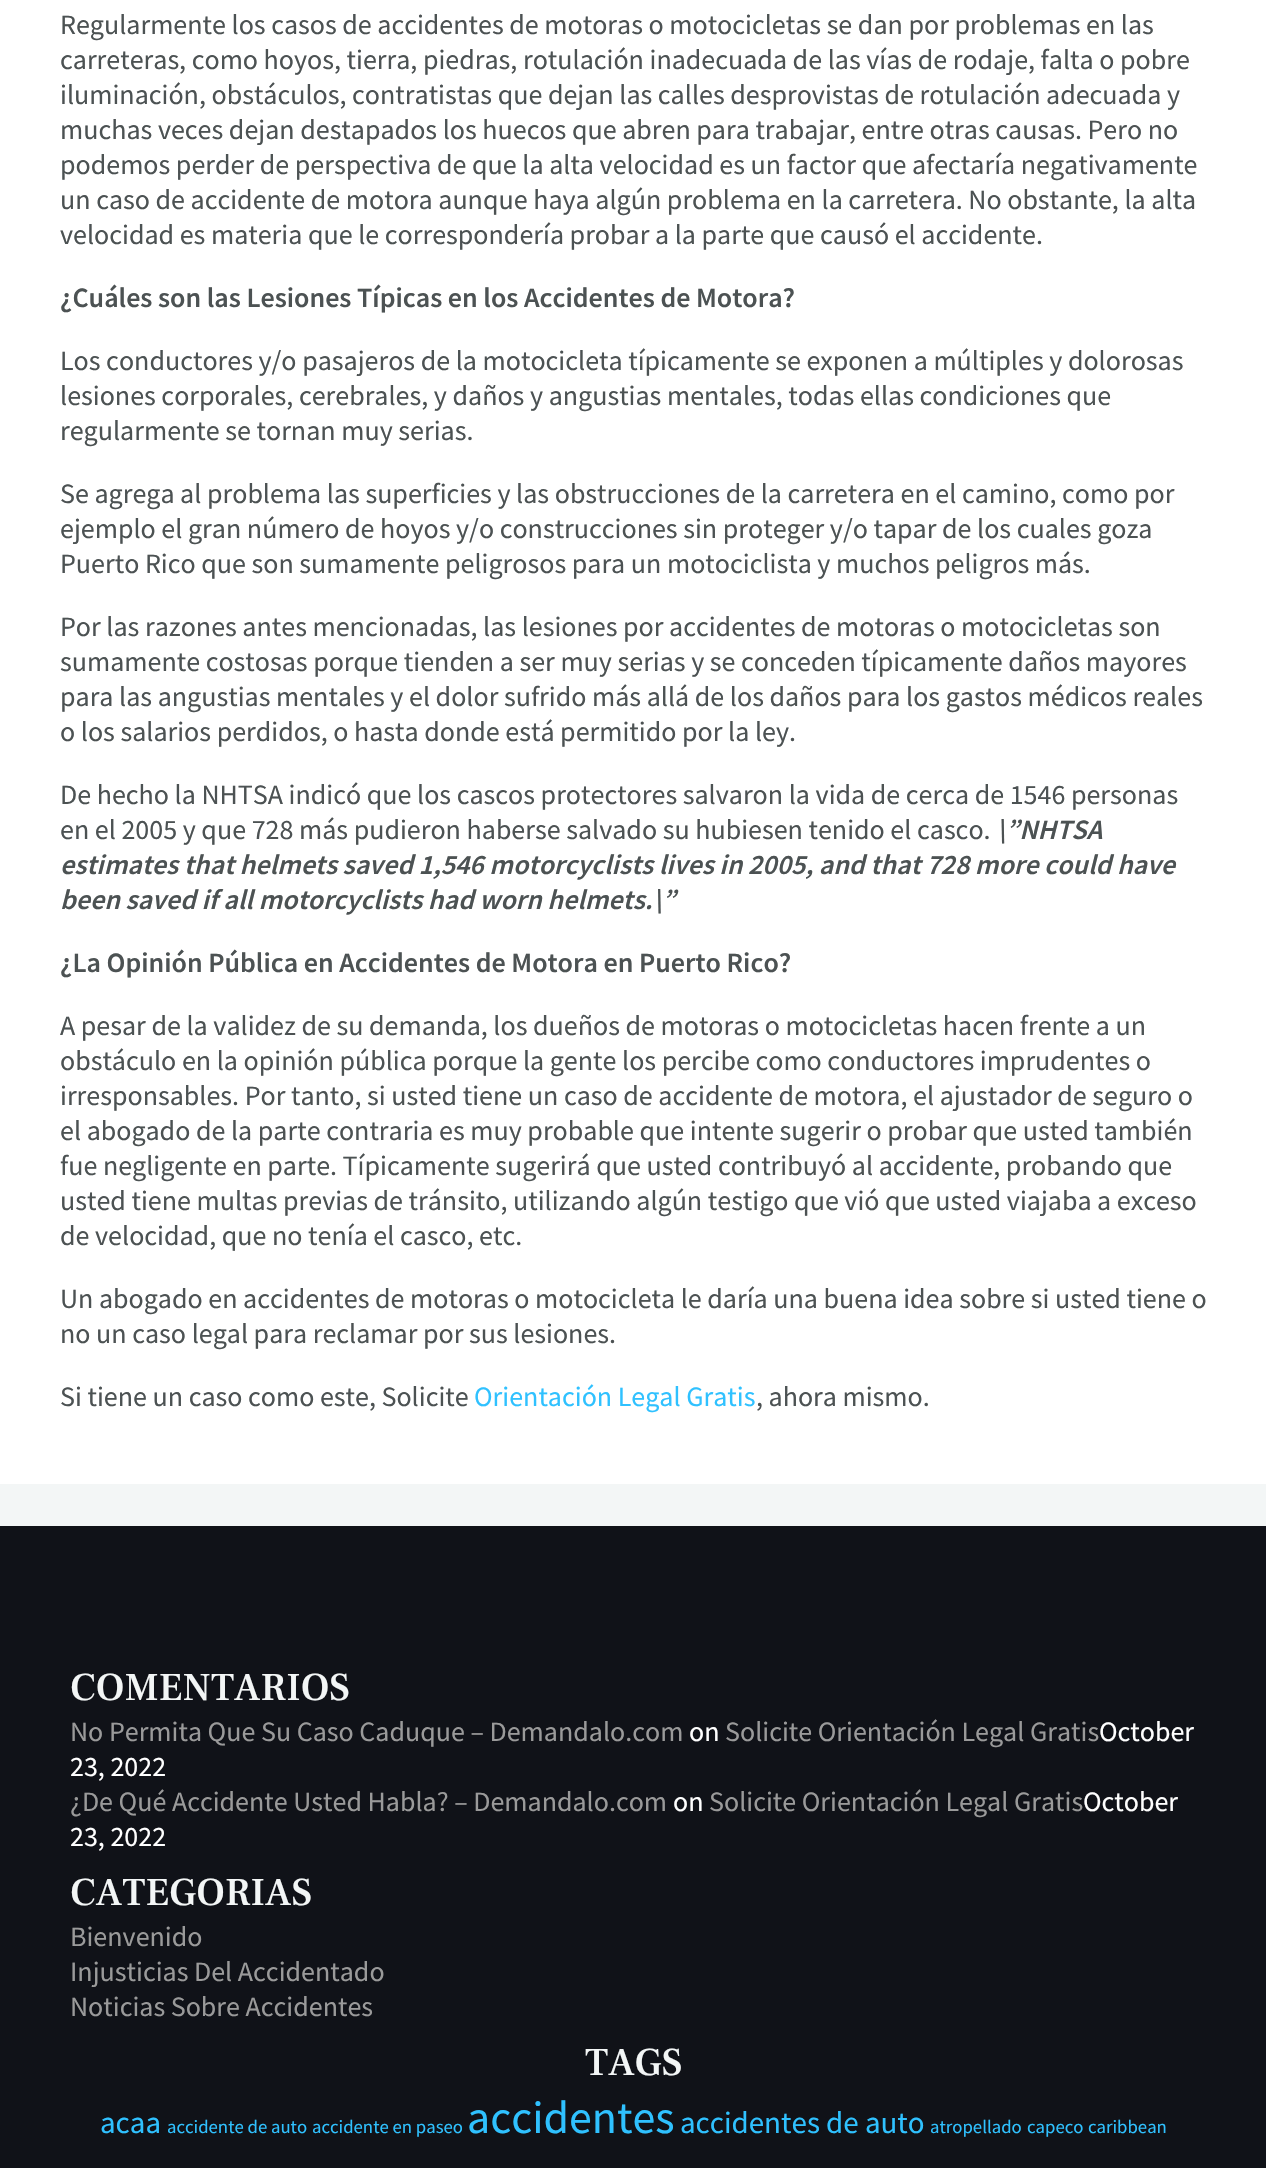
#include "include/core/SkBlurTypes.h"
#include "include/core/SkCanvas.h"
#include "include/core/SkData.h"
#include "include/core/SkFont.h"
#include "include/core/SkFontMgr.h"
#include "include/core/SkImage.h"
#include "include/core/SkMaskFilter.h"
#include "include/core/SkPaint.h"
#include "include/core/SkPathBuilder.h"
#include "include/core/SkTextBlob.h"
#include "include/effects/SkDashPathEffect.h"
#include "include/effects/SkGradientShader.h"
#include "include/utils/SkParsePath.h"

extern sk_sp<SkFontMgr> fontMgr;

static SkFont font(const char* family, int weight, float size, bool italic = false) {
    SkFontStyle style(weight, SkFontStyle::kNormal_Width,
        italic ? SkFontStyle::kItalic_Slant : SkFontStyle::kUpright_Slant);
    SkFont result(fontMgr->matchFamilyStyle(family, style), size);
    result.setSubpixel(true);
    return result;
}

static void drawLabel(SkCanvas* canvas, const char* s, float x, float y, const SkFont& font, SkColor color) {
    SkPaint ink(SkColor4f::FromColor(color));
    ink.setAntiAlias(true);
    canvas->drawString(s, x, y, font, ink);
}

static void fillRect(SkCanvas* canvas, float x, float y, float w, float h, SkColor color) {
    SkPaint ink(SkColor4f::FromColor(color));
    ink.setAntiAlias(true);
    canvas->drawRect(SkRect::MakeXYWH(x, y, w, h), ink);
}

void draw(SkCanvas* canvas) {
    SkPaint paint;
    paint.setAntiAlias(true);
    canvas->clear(0xFFF3F6F6);
    fillRect(canvas, 0, 0, 1266, 1484, 0xFFFFFFFF);
    SkFont font1 = font("Source Sans Pro", 400, 28);
    drawLabel(canvas, "Regularmente los casos de accidentes de motoras o motocicletas se dan por problemas en las", 60, 34, font1, 0xFF4C5253);
    drawLabel(canvas, "carreteras, como hoyos, tierra, piedras, rotulación inadecuada de las vías de rodaje, falta o pobre", 60, 69, font1, 0xFF4C5253);
    drawLabel(canvas, "iluminación, obstáculos, contratistas que dejan las calles desprovistas de rotulación adecuada y", 60, 104, font1, 0xFF4C5253);
    drawLabel(canvas, "muchas veces dejan destapados los huecos que abren para trabajar, entre otras causas. Pero no", 60, 139, font1, 0xFF4C5253);
    drawLabel(canvas, "podemos perder de perspectiva de que la alta velocidad es un factor que afectaría negativamente", 60, 174, font1, 0xFF4C5253);
    drawLabel(canvas, "un caso de accidente de motora aunque haya algún problema en la carretera. No obstante, la alta", 60, 209, font1, 0xFF4C5253);
    drawLabel(canvas, "velocidad es materia que le correspondería probar a la parte que causó el accidente.", 60, 244, font1, 0xFF4C5253);
    SkFont font2 = font("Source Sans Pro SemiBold", 600, 28);
    drawLabel(canvas, "¿Cuáles son las Lesiones Típicas en los Accidentes de Motora?", 60, 307, font2, 0xFF4C5253);
    drawLabel(canvas, "Los conductores y/o pasajeros de la motocicleta típicamente se exponen a múltiples y dolorosas", 60, 370, font1, 0xFF4C5253);
    drawLabel(canvas, "lesiones corporales, cerebrales, y daños y angustias mentales, todas ellas condiciones que", 60, 405, font1, 0xFF4C5253);
    drawLabel(canvas, "regularmente se tornan muy serias.", 60, 440, font1, 0xFF4C5253);
    drawLabel(canvas, "Se agrega al problema las superficies y las obstrucciones de la carretera en el camino, como por", 60, 503, font1, 0xFF4C5253);
    drawLabel(canvas, "ejemplo el gran número de hoyos y/o construcciones sin proteger y/o tapar de los cuales goza", 60, 538, font1, 0xFF4C5253);
    drawLabel(canvas, "Puerto Rico que son sumamente peligrosos para un motociclista y muchos peligros más.", 60, 573, font1, 0xFF4C5253);
    drawLabel(canvas, "Por las razones antes mencionadas, las lesiones por accidentes de motoras o motocicletas son", 60, 636, font1, 0xFF4C5253);
    drawLabel(canvas, "sumamente costosas porque tienden a ser muy serias y se conceden típicamente daños mayores", 60, 671, font1, 0xFF4C5253);
    drawLabel(canvas, "para las angustias mentales y el dolor sufrido más allá de los daños para los gastos médicos reales", 60, 706, font1, 0xFF4C5253);
    drawLabel(canvas, "o los salarios perdidos, o hasta donde está permitido por la ley.", 60, 741, font1, 0xFF4C5253);
    drawLabel(canvas, "De hecho la NHTSA indicó que los cascos protectores salvaron la vida de cerca de 1546 personas", 60, 804, font1, 0xFF4C5253);
    drawLabel(canvas, "en el 2005 y que 728 más pudieron haberse salvado su hubiesen tenido el casco.", 60, 839, font1, 0xFF4C5253);
    SkFont font3 = font("Source Sans Pro SemiBold", 600, 28, true);
    drawLabel(canvas, "\\”NHTSA", 996, 839, font3, 0xFF4C5253);
    drawLabel(canvas, "estimates that helmets saved 1,546 motorcyclists lives in 2005, and that 728 more could have", 60, 874, font3, 0xFF4C5253);
    drawLabel(canvas, "been saved if all motorcyclists had worn helmets.\\”", 60, 909, font3, 0xFF4C5253);
    drawLabel(canvas, "¿La Opinión Pública en Accidentes de Motora en Puerto Rico?", 60, 972, font2, 0xFF4C5253);
    drawLabel(canvas, "A pesar de la validez de su demanda, los dueños de motoras o motocicletas hacen frente a un", 60, 1035, font1, 0xFF4C5253);
    drawLabel(canvas, "obstáculo en la opinión pública porque la gente los percibe como conductores imprudentes o", 60, 1070, font1, 0xFF4C5253);
    drawLabel(canvas, "irresponsables. Por tanto, si usted tiene un caso de accidente de motora, el ajustador de seguro o", 60, 1105, font1, 0xFF4C5253);
    drawLabel(canvas, "el abogado de la parte contraria es muy probable que intente sugerir o probar que usted también", 60, 1140, font1, 0xFF4C5253);
    drawLabel(canvas, "fue negligente en parte. Típicamente sugerirá que usted contribuyó al accidente, probando que", 60, 1175, font1, 0xFF4C5253);
    drawLabel(canvas, "usted tiene multas previas de tránsito, utilizando algún testigo que vió que usted viajaba a exceso", 60, 1210, font1, 0xFF4C5253);
    drawLabel(canvas, "de velocidad, que no tenía el casco, etc.", 60, 1245, font1, 0xFF4C5253);
    drawLabel(canvas, "Un abogado en accidentes de motoras o motocicleta le daría una buena idea sobre si usted tiene o", 60, 1308, font1, 0xFF4C5253);
    drawLabel(canvas, "no un caso legal para reclamar por sus lesiones.", 60, 1343, font1, 0xFF4C5253);
    drawLabel(canvas, "Si tiene un caso como este, Solicite", 60, 1406, font1, 0xFF4C5253);
    drawLabel(canvas, "Orientación Legal Gratis", 474, 1406, font1, 0xFF2FC1FF);
    drawLabel(canvas, ", ahora mismo.", 756, 1406, font1, 0xFF4C5253);
    fillRect(canvas, 0, 1526, 1266, 642, 0xFF101218);
    SkFont font4 = font("Frank Ruhl Libre", 500, 39.5f);
    drawLabel(canvas, "COMENTARIOS", 70, 1700, font4, 0xFFF3F6F6);
    drawLabel(canvas, "No Permita Que Su Caso Caduque – Demandalo.com", 70, 1741, font1, 0xFF9A9A9A);
    drawLabel(canvas, "on", 689, 1741, font1, 0xFFFFFFFF);
    drawLabel(canvas, "Solicite Orientación Legal Gratis", 725, 1741, font1, 0xFF9A9A9A);
    drawLabel(canvas, "October", 1099, 1741, font1, 0xFFFFFFFF);
    drawLabel(canvas, "23, 2022", 70, 1776, font1, 0xFFFFFFFF);
    drawLabel(canvas, "¿De Qué Accidente Usted Habla? – Demandalo.com", 70, 1811, font1, 0xFF9A9A9A);
    drawLabel(canvas, "on", 673, 1811, font1, 0xFFFFFFFF);
    drawLabel(canvas, "Solicite Orientación Legal Gratis", 709, 1811, font1, 0xFF9A9A9A);
    drawLabel(canvas, "October", 1083, 1811, font1, 0xFFFFFFFF);
    drawLabel(canvas, "23, 2022", 70, 1846, font1, 0xFFFFFFFF);
    drawLabel(canvas, "CATEGORIAS", 70, 1905, font4, 0xFFF3F6F6);
    drawLabel(canvas, "Bienvenido", 70, 1946, font1, 0xFF9A9A9A);
    drawLabel(canvas, "Injusticias Del Accidentado", 70, 1981, font1, 0xFF9A9A9A);
    drawLabel(canvas, "Noticias Sobre Accidentes", 70, 2016, font1, 0xFF9A9A9A);
    drawLabel(canvas, "TAGS", 585, 2075, font4, 0xFFF3F6F6);
    SkFont font5 = font("Source Sans Pro", 400, 31);
    drawLabel(canvas, "acaa", 100, 2133, font5, 0xFF2FC1FF);
    SkFont font6 = font("Source Sans Pro", 400, 18.75f);
    drawLabel(canvas, "accidente de auto", 167, 2133, font6, 0xFF2FC1FF);
    drawLabel(canvas, "accidente en paseo", 312, 2133, font6, 0xFF2FC1FF);
    SkFont font7 = font("Source Sans Pro", 400, 46);
    drawLabel(canvas, "accidentes", 467, 2133, font7, 0xFF2FC1FF);
    drawLabel(canvas, "accidentes de auto", 680, 2133, font5, 0xFF2FC1FF);
    drawLabel(canvas, "atropellado", 930, 2133, font6, 0xFF2FC1FF);
    drawLabel(canvas, "capeco", 1027, 2133, font6, 0xFF2FC1FF);
    drawLabel(canvas, "caribbean", 1088, 2133, font6, 0xFF2FC1FF);
}
